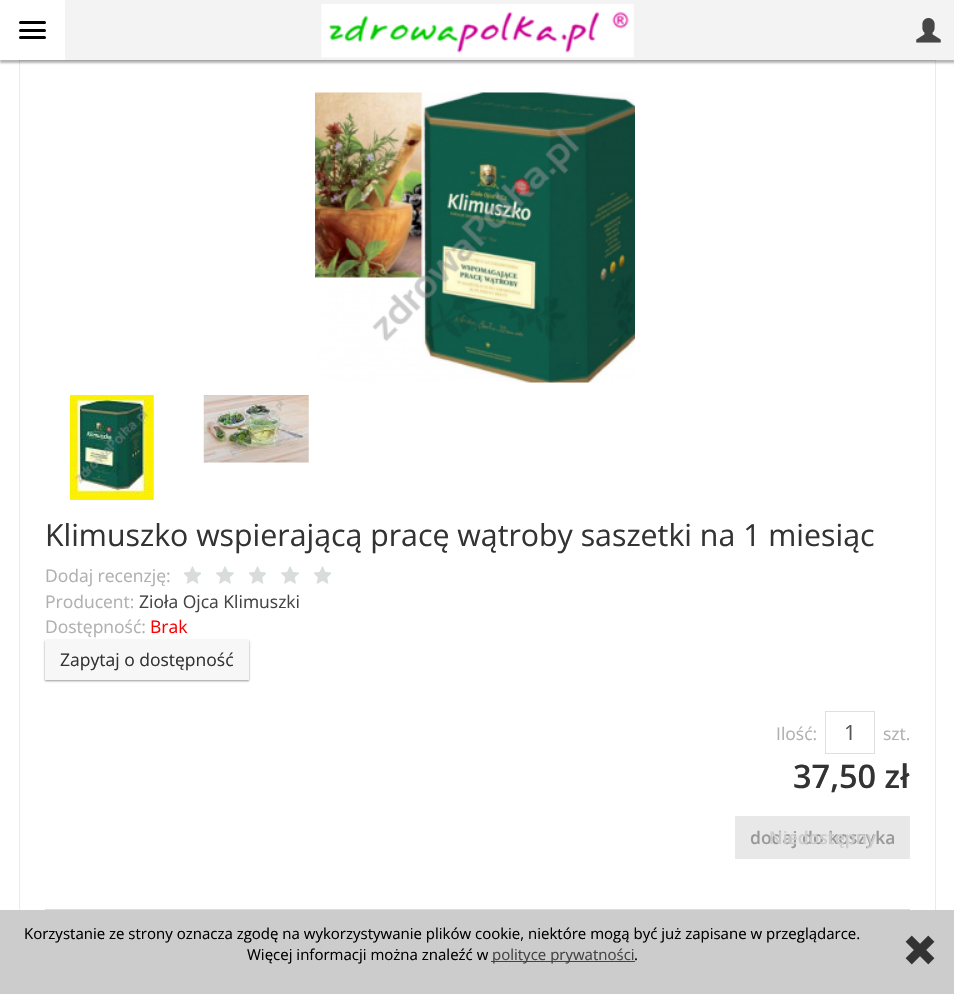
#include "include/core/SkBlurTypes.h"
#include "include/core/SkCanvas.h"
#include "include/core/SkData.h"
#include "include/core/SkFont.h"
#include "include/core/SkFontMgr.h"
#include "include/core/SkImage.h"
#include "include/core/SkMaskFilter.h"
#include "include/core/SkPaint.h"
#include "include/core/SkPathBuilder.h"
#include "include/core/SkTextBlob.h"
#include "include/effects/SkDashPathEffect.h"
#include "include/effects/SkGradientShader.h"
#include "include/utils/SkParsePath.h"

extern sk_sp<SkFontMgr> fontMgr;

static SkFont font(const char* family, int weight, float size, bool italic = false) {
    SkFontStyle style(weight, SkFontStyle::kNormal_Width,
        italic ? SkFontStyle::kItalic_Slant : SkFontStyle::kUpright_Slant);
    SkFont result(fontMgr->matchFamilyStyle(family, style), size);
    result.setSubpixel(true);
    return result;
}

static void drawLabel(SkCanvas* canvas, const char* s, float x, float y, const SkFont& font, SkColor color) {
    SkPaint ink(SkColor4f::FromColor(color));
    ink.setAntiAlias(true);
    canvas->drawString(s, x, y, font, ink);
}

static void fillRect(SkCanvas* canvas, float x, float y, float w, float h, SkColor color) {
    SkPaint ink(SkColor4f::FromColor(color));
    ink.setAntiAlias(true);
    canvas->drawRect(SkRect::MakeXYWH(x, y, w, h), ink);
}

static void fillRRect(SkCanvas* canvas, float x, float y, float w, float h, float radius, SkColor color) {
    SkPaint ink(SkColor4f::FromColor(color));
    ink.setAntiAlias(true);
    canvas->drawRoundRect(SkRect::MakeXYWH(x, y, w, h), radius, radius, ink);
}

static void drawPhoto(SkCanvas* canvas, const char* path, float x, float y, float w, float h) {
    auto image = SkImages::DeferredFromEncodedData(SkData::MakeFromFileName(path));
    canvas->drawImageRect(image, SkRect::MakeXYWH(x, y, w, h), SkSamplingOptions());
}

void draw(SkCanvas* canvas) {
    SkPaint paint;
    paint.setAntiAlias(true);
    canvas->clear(0xFFFFFFFF);
    paint.setStroke(true);
    paint.setStrokeWidth(1);
    paint.setColor(0xFFEAEAEA);
    canvas->drawRect(SkRect::MakeXYWH(19.5f, 60.5f, 916, 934), paint);
    paint.setStroke(false);
    paint.setColor(0x4A000000);
    paint.setMaskFilter(SkMaskFilter::MakeBlur(kNormal_SkBlurStyle, 1));
    canvas->drawRect(SkRect::MakeXYWH(0, 3, 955, 60), paint);
    paint.setMaskFilter(nullptr);
    fillRect(canvas, 65, 0, 889, 60, 0xFFF3F3F3);
    fillRect(canvas, 0, 1, 65, 59, 0xFFFFFFFF);
    fillRRect(canvas, 19, 21, 27, 3, 1.5f, 0xFF000000);
    fillRRect(canvas, 19, 29, 27, 3, 1.5f, 0xFF000000);
    fillRRect(canvas, 19, 36, 27, 3, 1.5f, 0xFF000000);
    drawPhoto(canvas, "assets/img1.png", 321, 4, 313, 54);
    drawPhoto(canvas, "assets/img2.png", 916, 18, 25, 25);
    drawPhoto(canvas, "assets/img3.png", 315, 92, 320, 291);
    drawPhoto(canvas, "assets/img4.png", 70, 395, 84, 105);
    drawPhoto(canvas, "assets/img5.png", 203, 395, 106, 68);
    SkFont font1 = font("Open Sans", 400, 30.3f);
    drawLabel(canvas, "Klimuszko wspierającą pracę wątroby saszetki na 1 miesiąc", 45, 546, font1, 0xFF333333);
    SkFont font2 = font("Open Sans", 400, 17.5f);
    drawLabel(canvas, "Dodaj recenzję:", 45, 582, font2, 0xFFB0B0B0);
    drawPhoto(canvas, "assets/img6.png", 184, 566, 17, 18);
    drawPhoto(canvas, "assets/img7.png", 216, 566, 18, 18);
    drawPhoto(canvas, "assets/img6.png", 249, 566, 17, 18);
    drawPhoto(canvas, "assets/img7.png", 281, 566, 18, 18);
    drawPhoto(canvas, "assets/img6.png", 314, 566, 17, 18);
    drawLabel(canvas, "Producent:", 45, 608, font2, 0xFFB0B0B0);
    drawLabel(canvas, "Zioła Ojca Klimuszki", 139, 608, font2, 0xFF444444);
    drawLabel(canvas, "Dostępność:", 45, 633, font2, 0xFFB0B0B0);
    drawLabel(canvas, "Brak", 150, 633, font2, 0xFFFF0000);
    paint.setColor(0xFF979797);
    paint.setMaskFilter(SkMaskFilter::MakeBlur(kNormal_SkBlurStyle, 1));
    canvas->drawRect(SkRect::MakeXYWH(45, 641, 204, 40), paint);
    paint.setMaskFilter(nullptr);
    fillRect(canvas, 45, 640, 204, 40, 0xFFF7F7F7);
    drawLabel(canvas, "Zapytaj o dostępność", 60, 666, font2, 0xFF333333);
    drawLabel(canvas, "Ilość:", 776, 740, font2, 0xFFB0B0B0);
    paint.setStroke(true);
    paint.setColor(0xFFDFDFDF);
    canvas->drawRect(SkRect::MakeXYWH(825.5f, 711.5f, 49, 42), paint);
    SkFont font3 = font("Open Sans", 400, 21);
    drawLabel(canvas, "1", 844, 740, font3, 0xFF555555);
    drawLabel(canvas, "szt.", 883, 740, font2, 0xFFB0B0B0);
    SkFont font4 = font("Open Sans", 600, 32.5f);
    drawLabel(canvas, "37,50 zł", 793, 788, font4, 0xFF333333);
    fillRect(canvas, 735, 816, 175, 43, 0xFFE8E8E8);
    SkFont font5 = font("Open Sans", 600, 17.5f);
    drawLabel(canvas, "dodaj do koszyka", 750, 844, font5, 0xFF999999);
    drawLabel(canvas, "Niedostępny", 769, 844, font5, 0xFFCCCCCC);
    fillRect(canvas, 45, 909, 865, 1, 0xFFDDDDDD);
    fillRect(canvas, 0, 910, 954, 84, 0xFFCCCCCC);
    SkFont font6 = font("Open Sans", 400, 15);
    drawLabel(canvas, "Korzystanie ze strony oznacza zgodę na wykorzystywanie plików cookie, niektóre mogą być już zapisane w przeglądarce.", 24, 939, font6, 0xFF000000);
    drawLabel(canvas, "Więcej informacji można znaleźć w", 247, 960, font6, 0xFF000000);
    fillRect(canvas, 491, 961, 144, 1, 0xFF444444);
    drawLabel(canvas, "polityce prywatności", 492, 960, font6, 0xFF444444);
    drawLabel(canvas, ".", 634, 960, font6, 0xFF000000);
    drawPhoto(canvas, "assets/img8.png", 905, 935, 30, 30);
}
